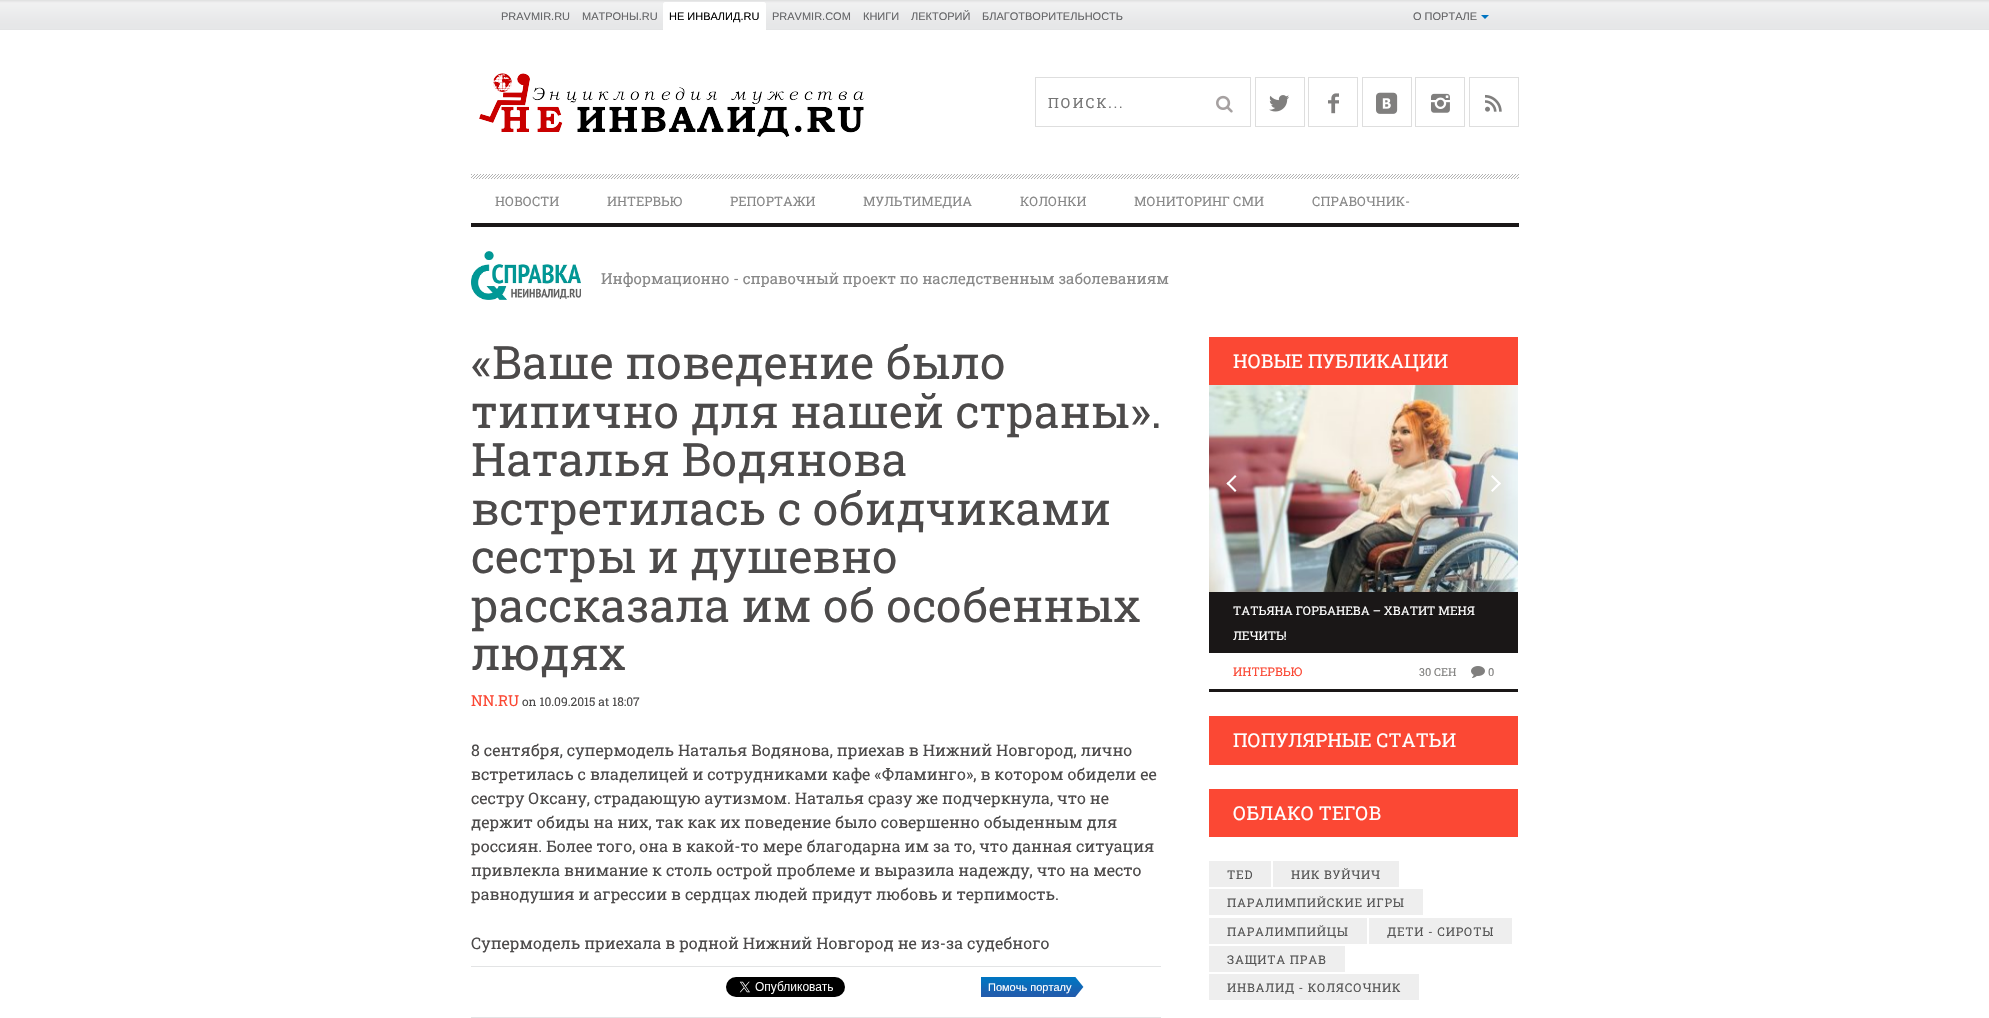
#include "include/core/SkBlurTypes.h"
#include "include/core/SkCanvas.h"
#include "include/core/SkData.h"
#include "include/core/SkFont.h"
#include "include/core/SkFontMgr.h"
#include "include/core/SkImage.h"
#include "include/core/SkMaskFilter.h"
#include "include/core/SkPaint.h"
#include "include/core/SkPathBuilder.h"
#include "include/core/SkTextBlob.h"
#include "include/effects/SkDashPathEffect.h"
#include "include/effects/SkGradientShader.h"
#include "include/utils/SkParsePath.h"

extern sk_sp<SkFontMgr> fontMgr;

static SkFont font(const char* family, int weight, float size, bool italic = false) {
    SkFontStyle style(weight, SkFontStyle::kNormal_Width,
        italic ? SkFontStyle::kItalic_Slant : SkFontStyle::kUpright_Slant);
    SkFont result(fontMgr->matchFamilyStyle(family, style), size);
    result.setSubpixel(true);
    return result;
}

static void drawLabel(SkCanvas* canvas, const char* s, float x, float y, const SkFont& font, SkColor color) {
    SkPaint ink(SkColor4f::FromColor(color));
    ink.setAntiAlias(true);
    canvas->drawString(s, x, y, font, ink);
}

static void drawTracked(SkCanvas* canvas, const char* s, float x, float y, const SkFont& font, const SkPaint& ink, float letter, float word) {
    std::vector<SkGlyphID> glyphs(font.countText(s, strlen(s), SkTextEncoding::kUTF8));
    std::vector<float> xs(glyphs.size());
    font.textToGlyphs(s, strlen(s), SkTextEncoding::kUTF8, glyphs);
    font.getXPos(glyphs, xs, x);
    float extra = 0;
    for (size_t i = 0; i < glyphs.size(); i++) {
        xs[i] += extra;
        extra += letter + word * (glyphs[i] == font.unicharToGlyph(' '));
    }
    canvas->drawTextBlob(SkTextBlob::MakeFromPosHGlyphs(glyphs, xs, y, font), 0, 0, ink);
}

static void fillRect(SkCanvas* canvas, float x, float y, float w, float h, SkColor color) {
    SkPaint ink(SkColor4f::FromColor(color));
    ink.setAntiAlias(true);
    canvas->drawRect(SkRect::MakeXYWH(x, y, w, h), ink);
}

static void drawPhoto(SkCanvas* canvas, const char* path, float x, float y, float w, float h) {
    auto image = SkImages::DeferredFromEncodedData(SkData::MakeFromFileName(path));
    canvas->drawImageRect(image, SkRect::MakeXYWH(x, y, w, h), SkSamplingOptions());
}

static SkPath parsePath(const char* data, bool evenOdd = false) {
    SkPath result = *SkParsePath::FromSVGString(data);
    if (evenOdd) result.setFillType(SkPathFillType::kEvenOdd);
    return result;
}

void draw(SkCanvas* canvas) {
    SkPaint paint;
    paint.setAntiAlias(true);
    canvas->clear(0xFFFFFFFF);
    drawPhoto(canvas, "assets/img1.png", 0, 0, 1989, 30);
    SkFont font1 = font("Liberation Sans", 400, 11);
    drawLabel(canvas, "PRAVMIR.RU", 501, 20, font1, 0xFF636466);
    drawLabel(canvas, "МАТРОНЫ.RU", 582, 20, font1, 0xFF636466);
    paint.setColor(0xFFFFFFFF);
    canvas->drawPath(parsePath("M665 2H764C765 2 766 3 766 4V30H663V4C663 3 664 2 665 2Z"), paint);
    drawLabel(canvas, "НЕ ИНВАЛИД.RU", 669, 20, font1, 0xFF000000);
    drawLabel(canvas, "PRAVMIR.COM", 772, 20, font1, 0xFF636466);
    drawLabel(canvas, "КНИГИ", 863, 20, font1, 0xFF636466);
    drawLabel(canvas, "ЛЕКТОРИЙ", 911, 20, font1, 0xFF636466);
    drawLabel(canvas, "БЛАГОТВОРИТЕЛЬНОСТЬ", 982, 20, font1, 0xFF636466);
    drawLabel(canvas, "О ПОРТАЛЕ", 1413, 20, font1, 0xFF636466);
    paint.setColor(0xFF0074C1);
    canvas->drawPath(parsePath("M1481 15H1489L1485 19Z"), paint);
    drawPhoto(canvas, "assets/img2.png", 479, 73, 385, 64);
    paint.setStroke(true);
    paint.setStrokeWidth(1);
    paint.setColor(0xFFDEDEDE);
    canvas->drawRect(SkRect::MakeXYWH(1035.5f, 77.5f, 215, 49), paint);
    SkFont font2 = font("Roboto Slab", 400, 14);
    paint.setStroke(false);
    paint.setColor(0xFF757575);
    drawTracked(canvas, "ПОИСК...", 1048, 108, font2, paint, 2, 0);
    drawPhoto(canvas, "assets/img3.png", 1216, 95, 17, 18);
    paint.setStroke(true);
    paint.setColor(0xFFDEDEDE);
    canvas->drawRect(SkRect::MakeXYWH(1255.5f, 77.5f, 49, 49), paint);
    drawPhoto(canvas, "assets/img4.png", 1269, 95, 20, 17);
    canvas->drawRect(SkRect::MakeXYWH(1308.5f, 77.5f, 49, 49), paint);
    drawPhoto(canvas, "assets/img5.png", 1328, 93, 11, 21);
    canvas->drawRect(SkRect::MakeXYWH(1362.5f, 77.5f, 49, 49), paint);
    drawPhoto(canvas, "assets/img6.png", 1376, 92, 22, 22);
    canvas->drawRect(SkRect::MakeXYWH(1415.5f, 77.5f, 49, 49), paint);
    drawPhoto(canvas, "assets/img7.png", 1431, 93, 19, 20);
    canvas->drawRect(SkRect::MakeXYWH(1469.5f, 77.5f, 49, 49), paint);
    drawPhoto(canvas, "assets/img8.png", 1485, 94, 17, 18);
    drawPhoto(canvas, "assets/img9.png", 471, 174, 1048, 5);
    fillRect(canvas, 471, 223, 1048, 4, 0xFF1A1717);
    SkFont font3 = font("Roboto Slab", 400, 13);
    drawLabel(canvas, "НОВОСТИ", 495, 206, font3, 0xFF888888);
    drawLabel(canvas, "ИНТЕРВЬЮ", 607, 206, font3, 0xFF888888);
    drawLabel(canvas, "РЕПОРТАЖИ", 730, 206, font3, 0xFF888888);
    drawLabel(canvas, "МУЛЬТИМЕДИА", 863, 206, font3, 0xFF888888);
    drawLabel(canvas, "КОЛОНКИ", 1020, 206, font3, 0xFF888888);
    drawLabel(canvas, "МОНИТОРИНГ СМИ", 1134, 206, font3, 0xFF888888);
    drawLabel(canvas, "СПРАВОЧНИК-", 1312, 206, font3, 0xFF888888);
    drawPhoto(canvas, "assets/img10.png", 471, 251, 110, 49);
    SkFont font4 = font("Roboto Slab", 400, 15);
    drawLabel(canvas, "Информационно - справочный проект по наследственным заболеваниям", 601, 284, font4, 0xFF888888);
    SkFont font5 = font("Roboto Slab", 400, 46);
    drawLabel(canvas, "«Ваше поведение было", 471, 379, font5, 0xFF4C4A4A);
    drawLabel(canvas, "типично для нашей страны».", 471, 428, font5, 0xFF4C4A4A);
    drawLabel(canvas, "Наталья Водянова", 471, 476, font5, 0xFF4C4A4A);
    drawLabel(canvas, "встретилась с обидчиками", 471, 525, font5, 0xFF4C4A4A);
    drawLabel(canvas, "сестры и душевно", 471, 573, font5, 0xFF4C4A4A);
    drawLabel(canvas, "рассказала им об особенных", 471, 622, font5, 0xFF4C4A4A);
    drawLabel(canvas, "людях", 471, 670, font5, 0xFF4C4A4A);
    drawLabel(canvas, "NN.RU", 471, 706, font4, 0xFFFB4834);
    SkFont font6 = font("Roboto Slab", 400, 12);
    drawLabel(canvas, "on 10.09.2015 at 18:07", 522, 706, font6, 0xFF4C4A4A);
    fillRect(canvas, 1209, 337, 309, 48, 0xFFFB4834);
    SkFont font7 = font("Roboto Slab", 400, 19);
    drawLabel(canvas, "НОВЫЕ ПУБЛИКАЦИИ", 1233, 368, font7, 0xFFFFFFFF);
    drawPhoto(canvas, "assets/img11.png", 1209, 385, 309, 207);
    paint.setStroke(false);
    paint.setColor(0xFFFFFFFF);
    canvas->drawPath(parsePath("M1228 482L1236.5 490.5L1235 492L1226.5 483.5Z"), paint);
    canvas->drawPath(parsePath("M1235 475L1236.5 476.5L1228 485L1226.5 483.5Z"), paint);
    canvas->drawPath(parsePath("M1491 476.5L1492.5 475L1501 483.5L1499.5 485Z"), paint);
    canvas->drawPath(parsePath("M1491 490.5L1499.5 482L1501 483.5L1492.5 492Z"), paint);
    fillRect(canvas, 1209, 689, 309, 3, 0xFF1A1717);
    fillRect(canvas, 1209, 592, 309, 61, 0xFF1A1717);
    drawLabel(canvas, "ТАТЬЯНА ГОРБАНЕВА – ХВАТИТ МЕНЯ", 1233, 615, font6, 0xFFFFFFFF);
    drawLabel(canvas, "ЛЕЧИТЬ!", 1233, 640, font6, 0xFFFFFFFF);
    drawLabel(canvas, "ИНТЕРВЬЮ", 1233, 676, font6, 0xFFFB4834);
    SkFont font8 = font("Roboto Slab", 400, 11);
    drawLabel(canvas, "30 СЕН", 1419, 676, font8, 0xFF807F7E);
    drawPhoto(canvas, "assets/img12.png", 1471, 666, 14, 12);
    drawLabel(canvas, "0", 1488, 676, font8, 0xFF807F7E);
    fillRect(canvas, 1209, 716, 309, 49, 0xFFFB4834);
    drawLabel(canvas, "ПОПУЛЯРНЫЕ СТАТЬИ", 1233, 747, font7, 0xFFFFFFFF);
    fillRect(canvas, 1209, 789, 309, 48, 0xFFFB4834);
    drawLabel(canvas, "ОБЛАКО ТЕГОВ", 1233, 820, font7, 0xFFFFFFFF);
    fillRect(canvas, 1209, 861, 62, 26, 0xFFEEEEEE);
    paint.setColor(0xFF555555);
    drawTracked(canvas, "TED", 1227, 879, font6, paint, 0.75f, 0);
    fillRect(canvas, 1273, 861, 126, 26, 0xFFEEEEEE);
    drawTracked(canvas, "НИК ВУЙЧИЧ", 1291, 879, font6, paint, 0.75f, 0);
    fillRect(canvas, 1209, 889, 214, 26, 0xFFEEEEEE);
    drawTracked(canvas, "ПАРАЛИМПИЙСКИЕ ИГРЫ", 1227, 907, font6, paint, 0.75f, 0);
    fillRect(canvas, 1209, 918, 158, 26, 0xFFEEEEEE);
    drawTracked(canvas, "ПАРАЛИМПИЙЦЫ", 1227, 936, font6, paint, 0.75f, 0);
    fillRect(canvas, 1369, 918, 143, 26, 0xFFEEEEEE);
    drawTracked(canvas, "ДЕТИ - СИРОТЫ", 1387, 936, font6, paint, 0.75f, 0);
    fillRect(canvas, 1209, 946, 136, 26, 0xFFEEEEEE);
    drawTracked(canvas, "ЗАЩИТА ПРАВ", 1227, 964, font6, paint, 0.75f, 0);
    fillRect(canvas, 1209, 974, 210, 26, 0xFFEEEEEE);
    drawTracked(canvas, "ИНВАЛИД - КОЛЯСОЧНИК", 1227, 992, font6, paint, 0.75f, 0);
    SkFont font9 = font("Roboto Slab", 400, 16);
    drawLabel(canvas, "8 сентября, супермодель Наталья Водянова, приехав в Нижний Новгород, лично", 471, 756, font9, 0xFF4C4A4A);
    drawLabel(canvas, "встретилась с владелицей и сотрудниками кафе «Фламинго», в котором обидели ее", 471, 780, font9, 0xFF4C4A4A);
    drawLabel(canvas, "сестру Оксану, страдающую аутизмом. Наталья сразу же подчеркнула, что не", 471, 804, font9, 0xFF4C4A4A);
    drawLabel(canvas, "держит обиды на них, так как их поведение было совершенно обыденным для", 471, 828, font9, 0xFF4C4A4A);
    drawLabel(canvas, "россиян. Более того, она в какой-то мере благодарна им за то, что данная ситуация", 471, 852, font9, 0xFF4C4A4A);
    drawLabel(canvas, "привлекла внимание к столь острой проблеме и выразила надежду, что на место", 471, 876, font9, 0xFF4C4A4A);
    drawLabel(canvas, "равнодушия и агрессии в сердцах людей придут любовь и терпимость.", 471, 900, font9, 0xFF4C4A4A);
    drawLabel(canvas, "Супермодель приехала в родной Нижний Новгород не из-за судебного", 471, 949, font9, 0xFF4C4A4A);
    fillRect(canvas, 471, 966, 690, 1, 0xFFE3E4E5);
    fillRect(canvas, 471, 1017, 690, 1, 0xFFE3E4E5);
    drawPhoto(canvas, "assets/img13.png", 726, 977, 119, 20);
    drawPhoto(canvas, "assets/img14.png", 981, 977, 103, 20);
    drawLabel(canvas, "Помочь порталу", 988, 991, font1, 0xFFFFFFFF);
}
